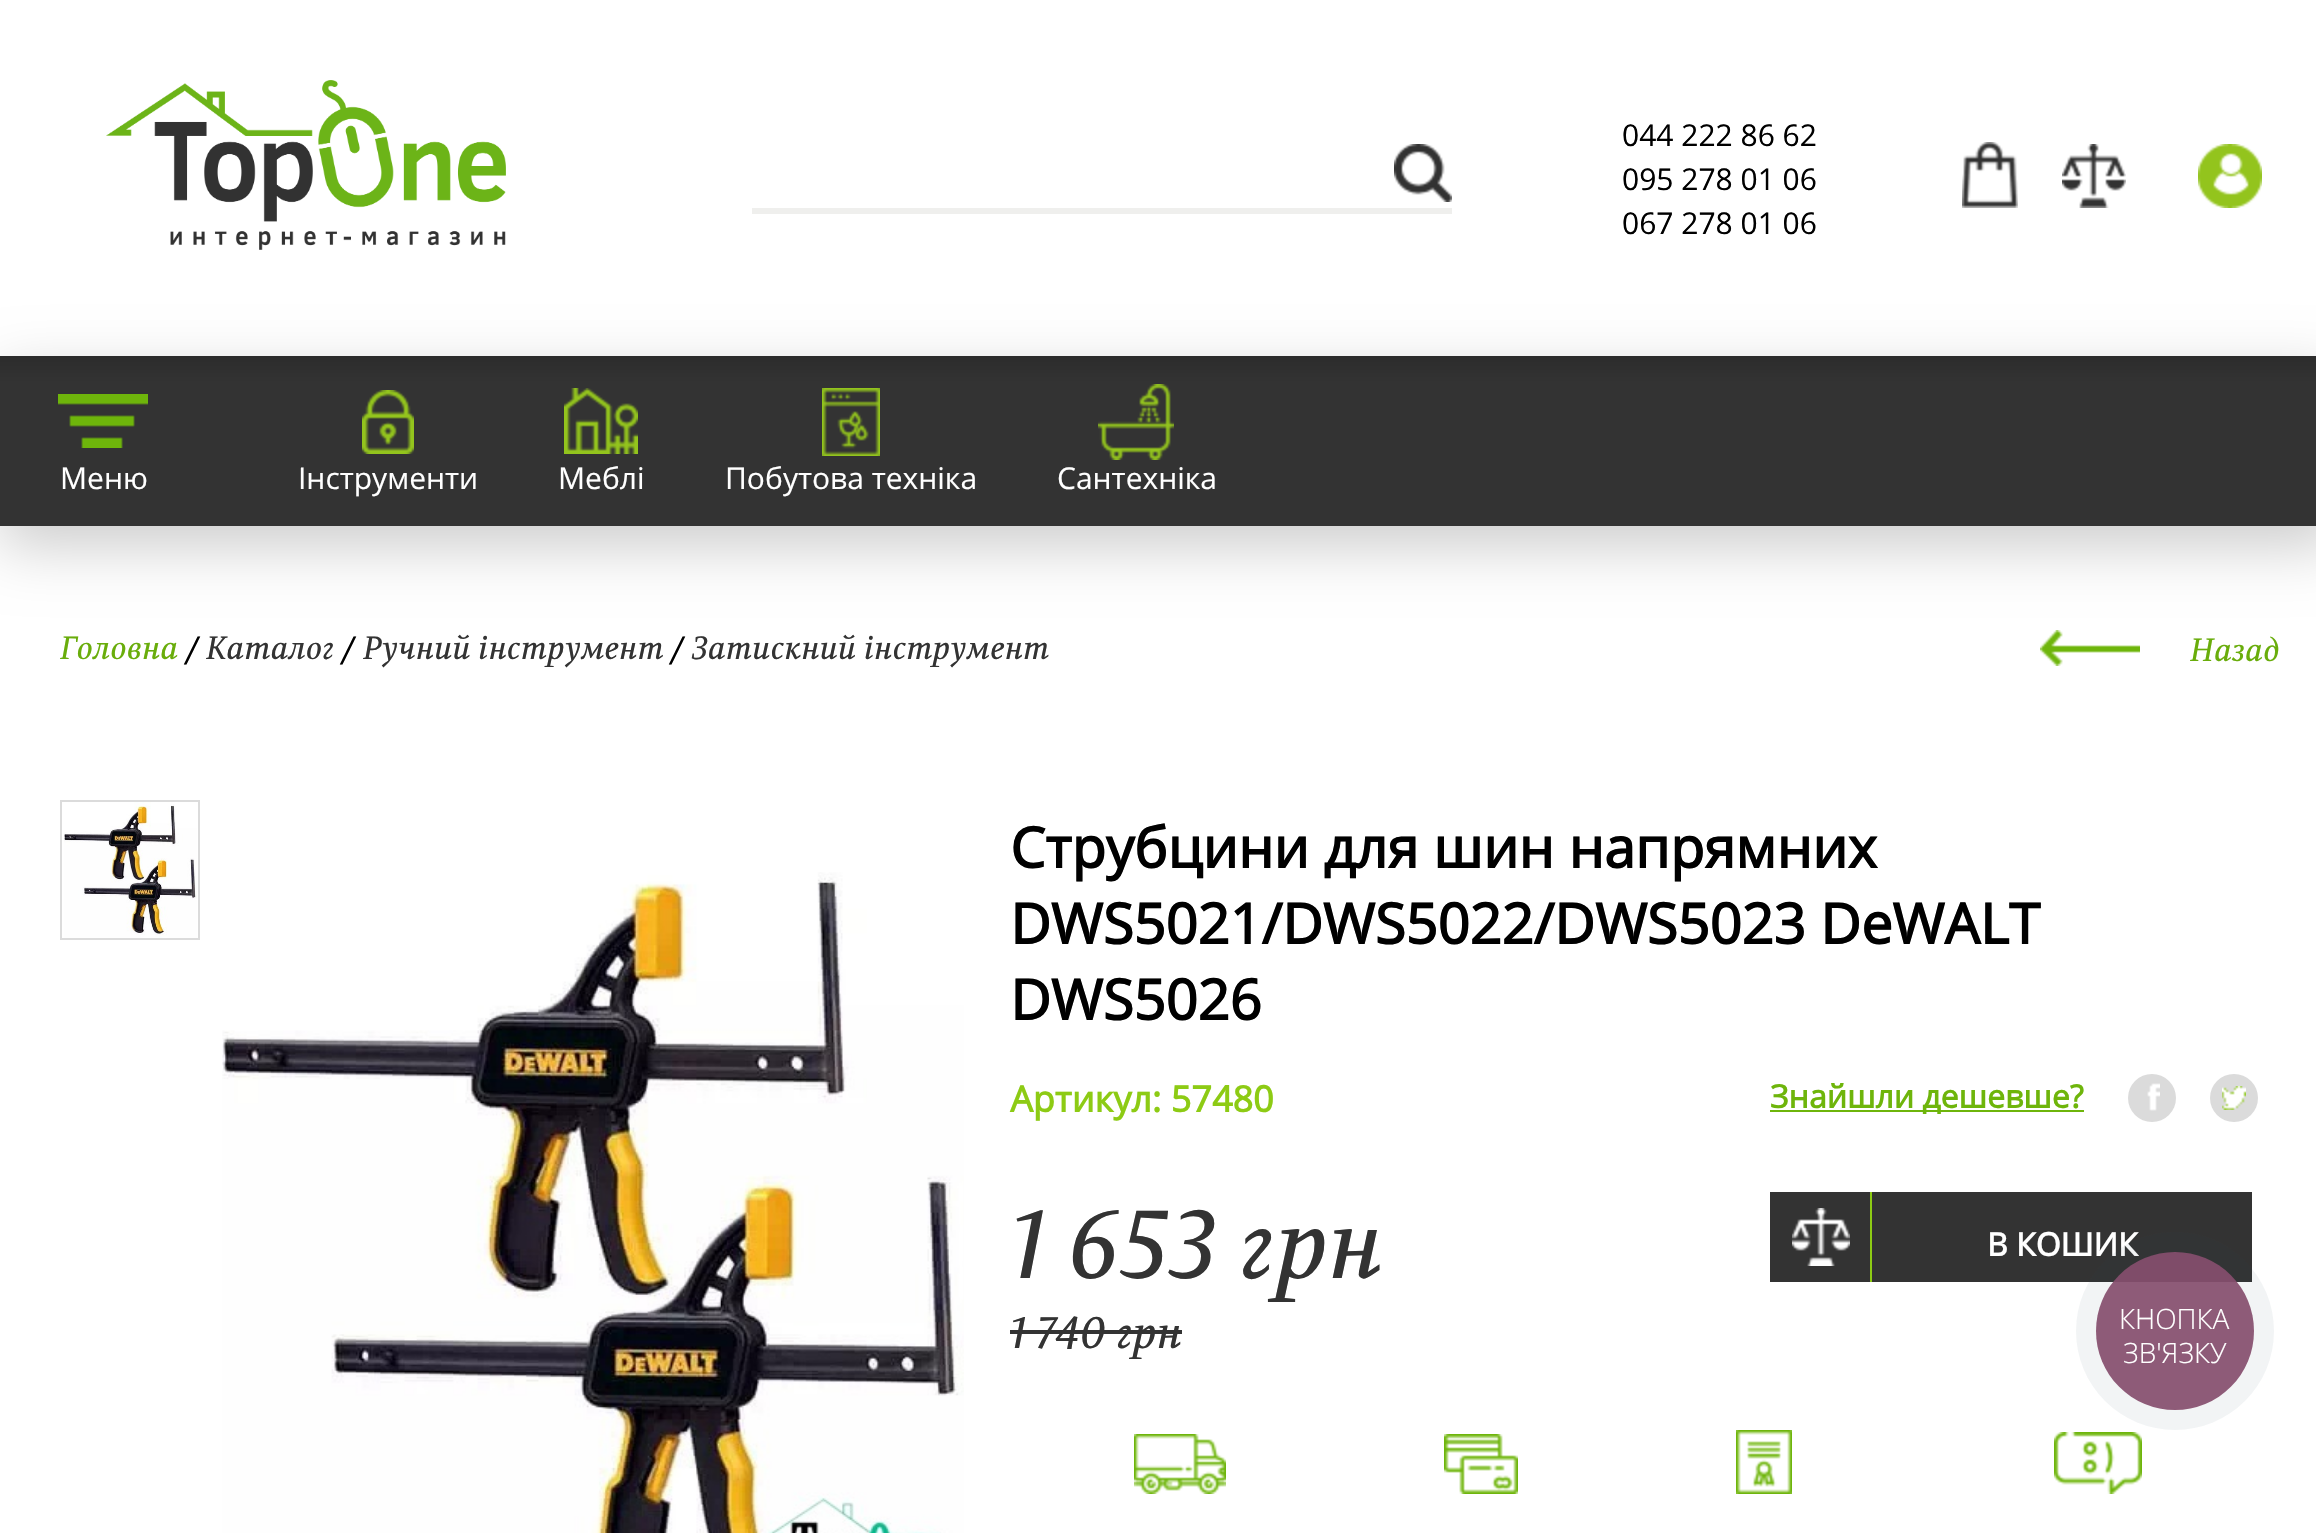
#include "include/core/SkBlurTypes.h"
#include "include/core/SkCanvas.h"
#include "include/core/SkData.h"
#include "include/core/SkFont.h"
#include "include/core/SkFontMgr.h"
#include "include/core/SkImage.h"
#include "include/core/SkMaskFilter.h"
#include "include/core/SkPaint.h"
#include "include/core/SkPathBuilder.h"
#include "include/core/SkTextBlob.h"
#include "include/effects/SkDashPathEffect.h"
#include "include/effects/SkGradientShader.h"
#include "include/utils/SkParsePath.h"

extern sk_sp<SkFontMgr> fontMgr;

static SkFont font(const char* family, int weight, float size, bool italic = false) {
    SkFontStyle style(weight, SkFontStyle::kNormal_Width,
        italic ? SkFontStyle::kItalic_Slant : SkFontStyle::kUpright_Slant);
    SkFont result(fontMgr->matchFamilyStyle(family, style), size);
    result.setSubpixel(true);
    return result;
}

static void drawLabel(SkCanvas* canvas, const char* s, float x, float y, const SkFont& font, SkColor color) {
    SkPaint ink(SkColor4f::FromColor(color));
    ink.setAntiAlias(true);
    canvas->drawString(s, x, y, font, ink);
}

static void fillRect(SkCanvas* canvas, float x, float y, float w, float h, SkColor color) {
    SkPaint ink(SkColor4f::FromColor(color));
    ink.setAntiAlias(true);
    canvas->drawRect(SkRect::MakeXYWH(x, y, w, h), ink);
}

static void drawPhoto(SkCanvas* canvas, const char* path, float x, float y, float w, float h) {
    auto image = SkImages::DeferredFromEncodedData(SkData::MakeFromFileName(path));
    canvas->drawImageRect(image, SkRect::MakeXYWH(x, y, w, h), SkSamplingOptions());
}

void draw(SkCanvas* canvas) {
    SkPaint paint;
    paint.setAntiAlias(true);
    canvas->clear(0xFFFFFFFF);
    drawPhoto(canvas, "assets/img1.png", 106, 80, 400, 170);
    drawPhoto(canvas, "assets/img2.png", 1394, 144, 58, 58);
    fillRect(canvas, 752, 208, 700, 6, 0xFFEFEFED);
    SkFont font1 = font("Open Sans", 400, 30);
    drawLabel(canvas, "044 222 86 62", 1622, 146, font1, 0xFF000000);
    drawLabel(canvas, "095 278 01 06", 1622, 190, font1, 0xFF000000);
    drawLabel(canvas, "067 278 01 06", 1622, 234, font1, 0xFF000000);
    drawPhoto(canvas, "assets/img3.png", 1962, 142, 56, 66);
    drawPhoto(canvas, "assets/img4.png", 2062, 144, 64, 64);
    drawPhoto(canvas, "assets/img5.png", 2198, 144, 64, 64);
    paint.setColor(0x33000000);
    paint.setMaskFilter(SkMaskFilter::MakeBlur(kNormal_SkBlurStyle, 30));
    canvas->drawRect(SkRect::MakeXYWH(0, 376, 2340, 170), paint);
    paint.setMaskFilter(nullptr);
    {
        const SkColor colors[] = {0xFF2C2C2C, 0xFF333333, 0xFF333333};
        const float stops[] = {0, 0.16f, 1};
        const SkPoint ends[] = {{1170, 356}, {1170, 526}};
        paint.setShader(SkGradientShader::MakeLinear(ends, colors, stops, 3, SkTileMode::kClamp));
        paint.setAlpha(255);
    }
    canvas->drawRect(SkRect::MakeXYWH(0, 356, 2316, 170), paint);
    drawPhoto(canvas, "assets/img6.png", 58, 394, 90, 54);
    drawLabel(canvas, "Меню", 60, 489, font1, 0xFFFFFFFF);
    drawPhoto(canvas, "assets/img7.png", 362, 390, 52, 64);
    drawLabel(canvas, "Інструменти", 298, 489, font1, 0xFFFFFFFF);
    drawPhoto(canvas, "assets/img8.png", 564, 388, 74, 66);
    drawLabel(canvas, "Меблі", 558, 489, font1, 0xFFFFFFFF);
    drawPhoto(canvas, "assets/img9.png", 822, 388, 58, 68);
    drawLabel(canvas, "Побутова техніка", 725, 489, font1, 0xFFFFFFFF);
    drawPhoto(canvas, "assets/img10.png", 1098, 384, 76, 76);
    drawLabel(canvas, "Сантехніка", 1057, 489, font1, 0xFFFFFFFF);
    SkFont font2 = font("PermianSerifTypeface", 400, 32, true);
    drawLabel(canvas, "Головна", 60, 659, font2, 0xFF69AD0B);
    drawLabel(canvas, "/", 186, 659, font2, 0xFF000000);
    drawLabel(canvas, "Каталог", 206, 659, font2, 0xFF333333);
    drawLabel(canvas, "/", 342, 659, font2, 0xFF000000);
    drawLabel(canvas, "Ручний інструмент", 363, 659, font2, 0xFF333333);
    drawLabel(canvas, "/", 671, 659, font2, 0xFF000000);
    drawLabel(canvas, "Затискний інструмент", 692, 659, font2, 0xFF333333);
    drawPhoto(canvas, "assets/img11.png", 2040, 630, 100, 36);
    drawLabel(canvas, "Назад", 2190, 661, font2, 0xFF69AD0B);
    paint.setStroke(true);
    paint.setStrokeWidth(2);
    paint.setShader(nullptr);
    paint.setColor(0xFFDBDBDB);
    canvas->drawRect(SkRect::MakeXYWH(61, 801, 138, 138), paint);
    drawPhoto(canvas, "assets/img12.png", 64, 802, 133, 136);
    drawPhoto(canvas, "assets/img13.png", 222, 872, 742, 661);
    SkFont font3 = font("Open Sans", 700, 56);
    drawLabel(canvas, "Струбцини для шин напрямних", 1010, 868, font3, 0xFF000000);
    drawLabel(canvas, "DWS5021/DWS5022/DWS5023 DeWALT", 1010, 944, font3, 0xFF000000);
    drawLabel(canvas, "DWS5026", 1010, 1020, font3, 0xFF000000);
    SkFont font4 = font("Open Sans", 700, 36);
    drawLabel(canvas, "Артикул: 57480", 1010, 1112, font4, 0xFF8DCB14);
    SkFont font5 = font("PermianSerifTypeface", 400, 96, true);
    drawLabel(canvas, "1 653 грн", 1010, 1278, font5, 0xFF333333);
    SkFont font6 = font("PermianSerifTypeface", 400, 44, true);
    drawLabel(canvas, "1 740 грн", 1010, 1348, font6, 0xFF333333);
    fillRect(canvas, 1010, 1330, 172, 4, 0xFF333333);
    fillRect(canvas, 1770, 1110, 314, 2, 0xFF6EB50B);
    SkFont font7 = font("Open Sans", 700, 32);
    drawLabel(canvas, "Знайшли дешевше?", 1770, 1108, font7, 0xFF6EB50B);
    paint.setStroke(false);
    canvas->drawCircle(2152, 1098, 24, paint);
    drawPhoto(canvas, "assets/img14.png", 2147, 1083, 13, 28);
    canvas->drawCircle(2234, 1098, 24, paint);
    drawPhoto(canvas, "assets/img15.png", 2222, 1086, 24, 24);
    fillRect(canvas, 1770, 1192, 100, 90, 0xFF333333);
    drawPhoto(canvas, "assets/img16.png", 1792, 1208, 58, 58);
    fillRect(canvas, 1870, 1192, 2, 90, 0xFF8DCB14);
    fillRect(canvas, 1872, 1192, 380, 90, 0xFF333333);
    drawLabel(canvas, "В КОШИК", 1987, 1256, font7, 0xFFFFFFFF);
    drawPhoto(canvas, "assets/img17.png", 1134, 1434, 92, 60);
    drawPhoto(canvas, "assets/img18.png", 1444, 1434, 74, 60);
    drawPhoto(canvas, "assets/img19.png", 1736, 1430, 56, 64);
    drawPhoto(canvas, "assets/img20.png", 2054, 1432, 88, 62);
    paint.setColor(0x0F2A405D);
    canvas->drawCircle(2175, 1331, 99, paint);
    paint.setColor(0xEB854D6D);
    canvas->drawCircle(2175, 1331, 79, paint);
    SkFont font8 = font("Open Sans", 300, 28);
    drawLabel(canvas, "КНОПКА", 2119, 1329, font8, 0xFFFFFFFF);
    drawLabel(canvas, "ЗВ'ЯЗКУ", 2123, 1363, font8, 0xFFFFFFFF);
}
